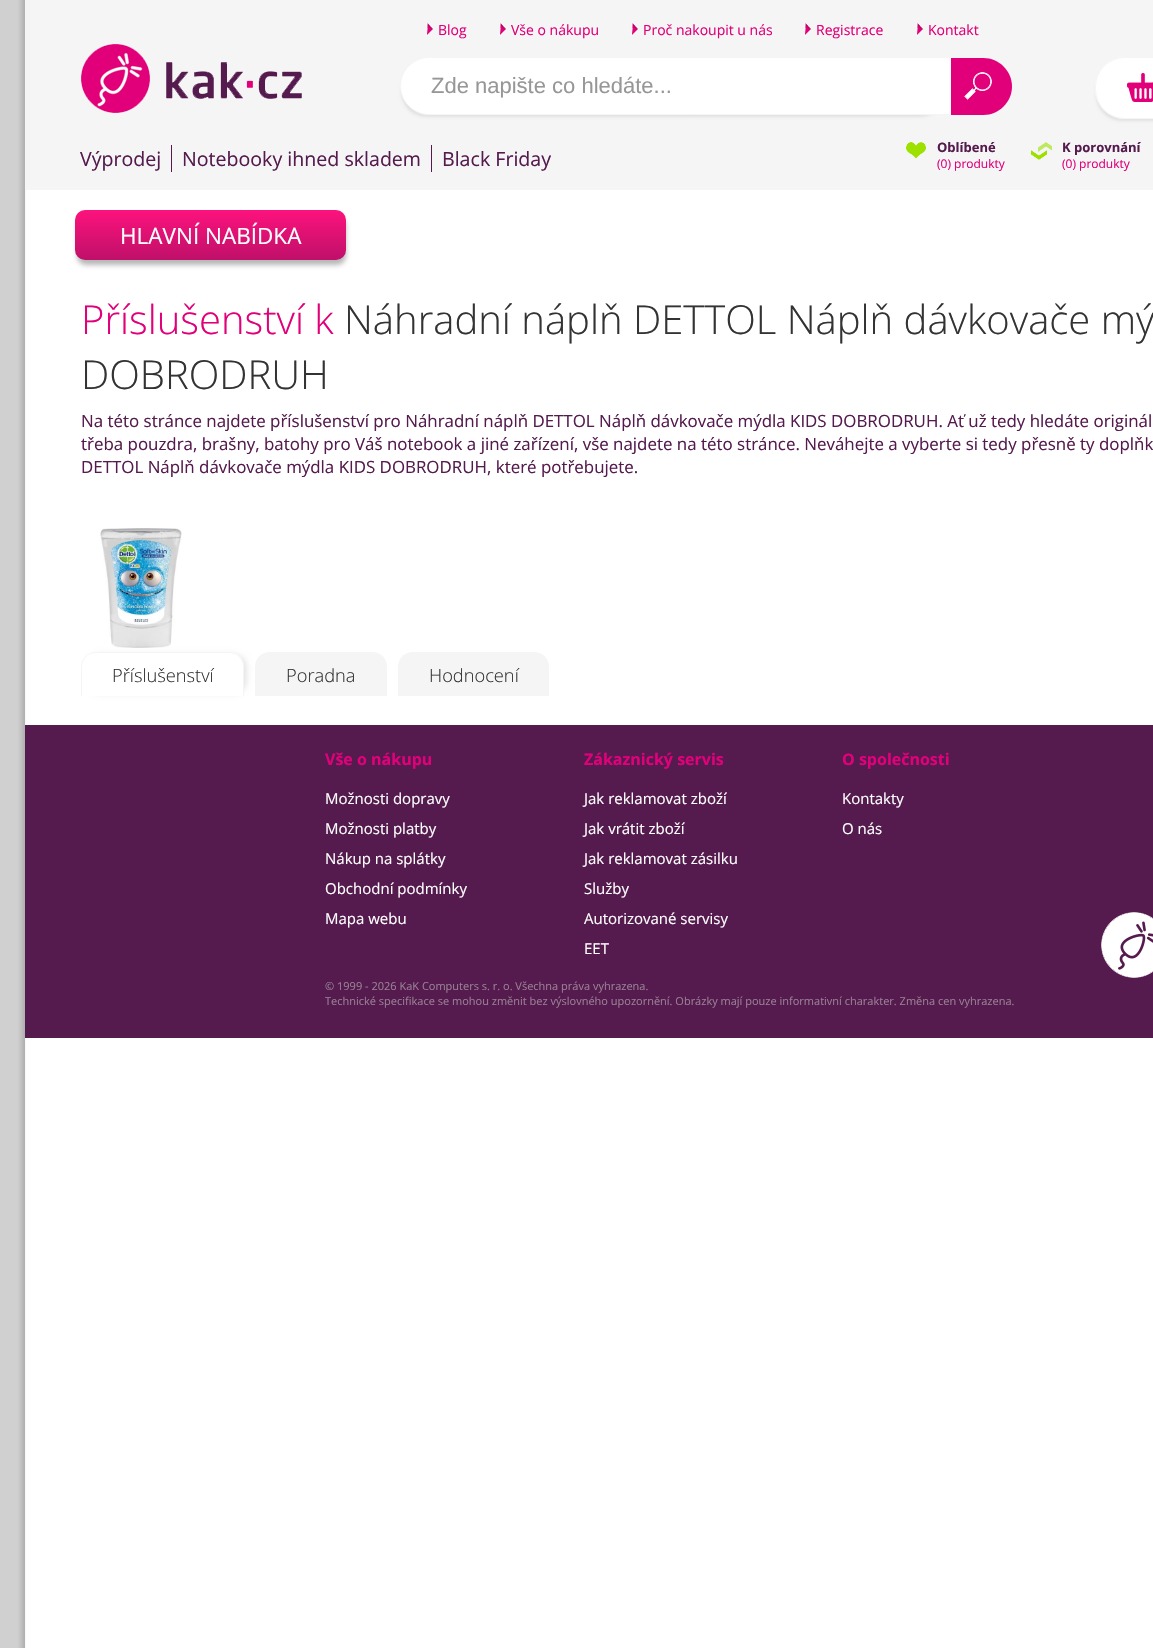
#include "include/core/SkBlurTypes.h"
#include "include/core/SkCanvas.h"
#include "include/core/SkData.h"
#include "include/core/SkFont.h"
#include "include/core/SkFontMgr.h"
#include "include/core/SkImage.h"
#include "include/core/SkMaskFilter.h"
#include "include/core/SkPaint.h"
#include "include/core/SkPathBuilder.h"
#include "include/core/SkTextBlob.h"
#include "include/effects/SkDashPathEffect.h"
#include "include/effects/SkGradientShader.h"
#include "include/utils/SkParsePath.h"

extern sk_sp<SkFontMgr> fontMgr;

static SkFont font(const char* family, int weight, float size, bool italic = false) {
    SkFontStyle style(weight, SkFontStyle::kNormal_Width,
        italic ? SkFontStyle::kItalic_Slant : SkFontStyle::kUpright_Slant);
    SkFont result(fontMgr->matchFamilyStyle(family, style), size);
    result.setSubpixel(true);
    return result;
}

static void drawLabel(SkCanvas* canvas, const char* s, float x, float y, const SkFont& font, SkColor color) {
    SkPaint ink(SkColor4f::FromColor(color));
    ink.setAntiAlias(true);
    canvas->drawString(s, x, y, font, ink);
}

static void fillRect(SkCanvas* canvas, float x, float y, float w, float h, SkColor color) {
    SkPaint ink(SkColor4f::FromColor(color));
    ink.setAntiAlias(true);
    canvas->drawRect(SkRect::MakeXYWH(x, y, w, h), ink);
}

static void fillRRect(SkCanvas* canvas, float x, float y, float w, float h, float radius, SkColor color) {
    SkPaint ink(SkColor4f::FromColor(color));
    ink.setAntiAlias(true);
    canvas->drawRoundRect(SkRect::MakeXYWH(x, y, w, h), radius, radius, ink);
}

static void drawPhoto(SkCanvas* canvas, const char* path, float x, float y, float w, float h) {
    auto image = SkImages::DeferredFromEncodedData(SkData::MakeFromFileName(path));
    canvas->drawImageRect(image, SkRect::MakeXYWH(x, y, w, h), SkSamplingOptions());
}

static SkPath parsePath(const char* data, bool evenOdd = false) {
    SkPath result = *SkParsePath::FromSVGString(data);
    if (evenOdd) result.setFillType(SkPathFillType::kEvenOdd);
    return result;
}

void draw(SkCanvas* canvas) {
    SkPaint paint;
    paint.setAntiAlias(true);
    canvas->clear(0xFFD0D0D0);
    drawPhoto(canvas, "assets/img1.png", 18, 0, 1135, 1648);
    fillRect(canvas, 25, 0, 1128, 190, 0xFFF5F5F5);
    drawPhoto(canvas, "assets/img2.png", 426, 23, 7, 13);
    SkFont font1 = font("Open Sans", 400, 14);
    drawLabel(canvas, "Blog", 438, 35, font1, 0xFFE1007A);
    drawPhoto(canvas, "assets/img2.png", 499, 23, 7, 13);
    drawLabel(canvas, "Vše o nákupu", 511, 35, font1, 0xFFE1007A);
    drawPhoto(canvas, "assets/img2.png", 631, 23, 7, 13);
    drawLabel(canvas, "Proč nakoupit u nás", 643, 35, font1, 0xFFE1007A);
    drawPhoto(canvas, "assets/img2.png", 804, 23, 7, 13);
    drawLabel(canvas, "Registrace", 816, 35, font1, 0xFFE1007A);
    drawPhoto(canvas, "assets/img2.png", 916, 23, 7, 13);
    drawLabel(canvas, "Kontakt", 928, 35, font1, 0xFFE1007A);
    drawPhoto(canvas, "assets/img3.png", 81, 44, 221, 69);
    paint.setColor(0xFFE2E2E2);
    paint.setMaskFilter(SkMaskFilter::MakeBlur(kNormal_SkBlurStyle, 1.5f));
    canvas->drawRoundRect(SkRect::MakeXYWH(401, 67, 544, 50), 25, 25, paint);
    paint.setMaskFilter(nullptr);
    paint.setColor(0xFFFFFFFF);
    canvas->drawPath(parsePath("M429 57.5H951.5V114.5H429C413.5 114.5 400.5 101.5 400.5 86C400.5 70.5 413.5 57.5 429 57.5Z"), paint);
    paint.setStroke(true);
    paint.setStrokeWidth(1);
    paint.setColor(0xFFF5F5F5);
    canvas->drawPath(parsePath("M429 57.5H951.5V114.5H429C413.5 114.5 400.5 101.5 400.5 86C400.5 70.5 413.5 57.5 429 57.5Z"), paint);
    SkFont font2 = font("Liberation Sans", 400, 22);
    drawLabel(canvas, "Zde napište co hledáte...", 431, 93, font2, 0xFF979797);
    paint.setStroke(false);
    paint.setColor(0xFFE2007A);
    canvas->drawPath(parsePath("M951 58H983.5C999 58 1012 71 1012 86.5C1012 102 999 115 983.5 115H951Z"), paint);
    drawPhoto(canvas, "assets/img4.png", 964, 72, 28, 28);
    paint.setColor(0xFFE2E2E2);
    paint.setMaskFilter(SkMaskFilter::MakeBlur(kNormal_SkBlurStyle, 1.5f));
    canvas->drawRoundRect(SkRect::MakeXYWH(1096, 67, 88, 54), 26, 26, paint);
    paint.setMaskFilter(nullptr);
    fillRRect(canvas, 1095, 57, 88, 62, 30, 0xFFFFFFFF);
    drawPhoto(canvas, "assets/img5.png", 1127, 73, 26, 29);
    paint.setStroke(true);
    paint.setColor(0xFFF5F5F5);
    canvas->drawRoundRect(SkRect::MakeXYWH(1095.5f, 57.5f, 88, 61), 29.5f, 29.5f, paint);
    fillRect(canvas, 171, 145, 1, 27, 0xFF551B4E);
    SkFont font3 = font("Open Sans", 400, 19.6f);
    drawLabel(canvas, "Výprodej", 80, 166, font3, 0xFF551B4E);
    fillRect(canvas, 431, 145, 1, 27, 0xFF551B4E);
    drawLabel(canvas, "Notebooky ihned skladem", 182, 166, font3, 0xFF551B4E);
    drawLabel(canvas, "Black Friday", 442, 166, font3, 0xFF551B4E);
    drawPhoto(canvas, "assets/img6.png", 906, 142, 20, 17);
    SkFont font4 = font("Open Sans", 700, 13);
    drawLabel(canvas, "Oblíbené", 937, 152, font4, 0xFF551B4E);
    SkFont font5 = font("Open Sans", 400, 12);
    drawLabel(canvas, "(0) produkty", 937, 168, font5, 0xFFE1007A);
    drawPhoto(canvas, "assets/img7.png", 1031, 142, 21, 18);
    drawLabel(canvas, "K porovnání", 1062, 152, font4, 0xFF551B4E);
    drawLabel(canvas, "(0) produkty", 1062, 168, font5, 0xFFE1007A);
    paint.setStroke(false);
    paint.setColor(0xFFB7B7B7);
    paint.setMaskFilter(SkMaskFilter::MakeBlur(kNormal_SkBlurStyle, 2.5f));
    canvas->drawRoundRect(SkRect::MakeXYWH(77, 217, 269, 48), 9, 9, paint);
    paint.setMaskFilter(nullptr);
    {
        const SkColor colors[] = {0xFFFD127D, 0xFFBF1069};
        const float stops[] = {0, 1};
        const SkPoint ends[] = {{211, 210}, {211, 260}};
        paint.setShader(SkGradientShader::MakeLinear(ends, colors, stops, 2, SkTileMode::kClamp));
        paint.setAlpha(255);
    }
    canvas->drawRoundRect(SkRect::MakeXYWH(75, 210, 271, 50), 10, 10, paint);
    SkFont font6 = font("Open Sans", 400, 22.5f);
    drawLabel(canvas, "HLAVNÍ NABÍDKA", 120, 244, font6, 0xFFFFFFFF);
    SkFont font7 = font("Open Sans", 300, 40);
    drawLabel(canvas, "Příslušenství k", 81, 334, font7, 0xFFE1007A);
    drawLabel(canvas, "Náhradní náplň DETTOL Náplň dávkovače mý", 344, 334, font7, 0xFF333333);
    drawLabel(canvas, "DOBRODRUH", 81, 389, font7, 0xFF333333);
    SkFont font8 = font("Open Sans", 400, 16.9f);
    drawLabel(canvas, "Na této stránce najdete příslušenství pro Náhradní náplň DETTOL Náplň dávkovače mýdla KIDS DOBRODRUH. Ať už tedy hledáte originál", 81, 427, font8, 0xFF551B4E);
    drawLabel(canvas, "třeba pouzdra, brašny, batohy pro Váš notebook a jiné zařízení, vše najdete na této stránce. Neváhejte a vyberte si tedy přesně ty doplňk", 81, 450, font8, 0xFF551B4E);
    drawLabel(canvas, "DETTOL Náplň dávkovače mýdla KIDS DOBRODRUH, které potřebujete.", 81, 473, font8, 0xFF551B4E);
    drawPhoto(canvas, "assets/img8.png", 100, 528, 82, 120);
    paint.setShader(nullptr);
    paint.setColor(0xFFE2DFE0);
    paint.setMaskFilter(SkMaskFilter::MakeBlur(kNormal_SkBlurStyle, 3));
    canvas->drawRoundRect(SkRect::MakeXYWH(89, 655, 157, 38), 12, 12, paint);
    paint.setMaskFilter(nullptr);
    paint.setColor(0xFFFFFFFF);
    canvas->drawPath(parsePath("M96 652H229C237.5 652 244 658.5 244 667V696H81V667C81 658.5 87.5 652 96 652Z"), paint);
    paint.setColor(0xFFF5F5F5);
    canvas->drawPath(parsePath("M96 652H229C237 652 244 659 244 667V696H81V667C81 659 88 652 96 652ZM96 653H229C237 653 243 659 243 667V696H82V667C82 659 88 653 96 653Z", true), paint);
    SkFont font9 = font("Open Sans", 300, 18.25f);
    drawLabel(canvas, "Příslušenství", 112, 682, font9, 0xFF333333);
    canvas->drawPath(parsePath("M270 652H372C380.5 652 387 658.5 387 667V696H255V667C255 658.5 261.5 652 270 652Z"), paint);
    drawLabel(canvas, "Poradna", 286, 682, font9, 0xFF333333);
    canvas->drawPath(parsePath("M413 652H534C542.5 652 549 658.5 549 667V696H398V667C398 658.5 404.5 652 413 652Z"), paint);
    drawLabel(canvas, "Hodnocení", 429, 682, font9, 0xFF333333);
    fillRect(canvas, 25, 725, 1128, 313, 0xFF551B4E);
    SkFont font10 = font("Open Sans", 700, 16);
    drawLabel(canvas, "Vše o nákupu", 325, 765, font10, 0xFFE1007A);
    SkFont font11 = font("Open Sans", 400, 15);
    drawLabel(canvas, "Možnosti dopravy", 325, 804, font11, 0xFFFFFFFF);
    drawLabel(canvas, "Možnosti platby", 325, 834, font11, 0xFFFFFFFF);
    drawLabel(canvas, "Nákup na splátky", 325, 864, font11, 0xFFFFFFFF);
    drawLabel(canvas, "Obchodní podmínky", 325, 894, font11, 0xFFFFFFFF);
    drawLabel(canvas, "Mapa webu", 325, 924, font11, 0xFFFFFFFF);
    drawLabel(canvas, "Zákaznický servis", 584, 765, font10, 0xFFE1007A);
    drawLabel(canvas, "Jak reklamovat zboží", 584, 804, font11, 0xFFFFFFFF);
    drawLabel(canvas, "Jak vrátit zboží", 584, 834, font11, 0xFFFFFFFF);
    drawLabel(canvas, "Jak reklamovat zásilku", 584, 864, font11, 0xFFFFFFFF);
    drawLabel(canvas, "Služby", 584, 894, font11, 0xFFFFFFFF);
    drawLabel(canvas, "Autorizované servisy", 584, 924, font11, 0xFFFFFFFF);
    drawLabel(canvas, "EET", 584, 954, font11, 0xFFFFFFFF);
    drawLabel(canvas, "O společnosti", 842, 765, font10, 0xFFE1007A);
    drawLabel(canvas, "Kontakty", 842, 804, font11, 0xFFFFFFFF);
    drawLabel(canvas, "O nás", 842, 834, font11, 0xFFFFFFFF);
    drawPhoto(canvas, "assets/img9.png", 1101, 912, 52, 66);
    SkFont font12 = font("Open Sans", 400, 11);
    drawLabel(canvas, "© 1999 - 2026 KaK Computers s. r. o. Všechna práva vyhrazena.", 325, 990, font12, 0xFF988094);
    drawLabel(canvas, "Technické specifikace se mohou změnit bez výslovného upozornění. Obrázky mají pouze informativní charakter. Změna cen vyhrazena.", 325, 1005, font12, 0xFF988094);
}
